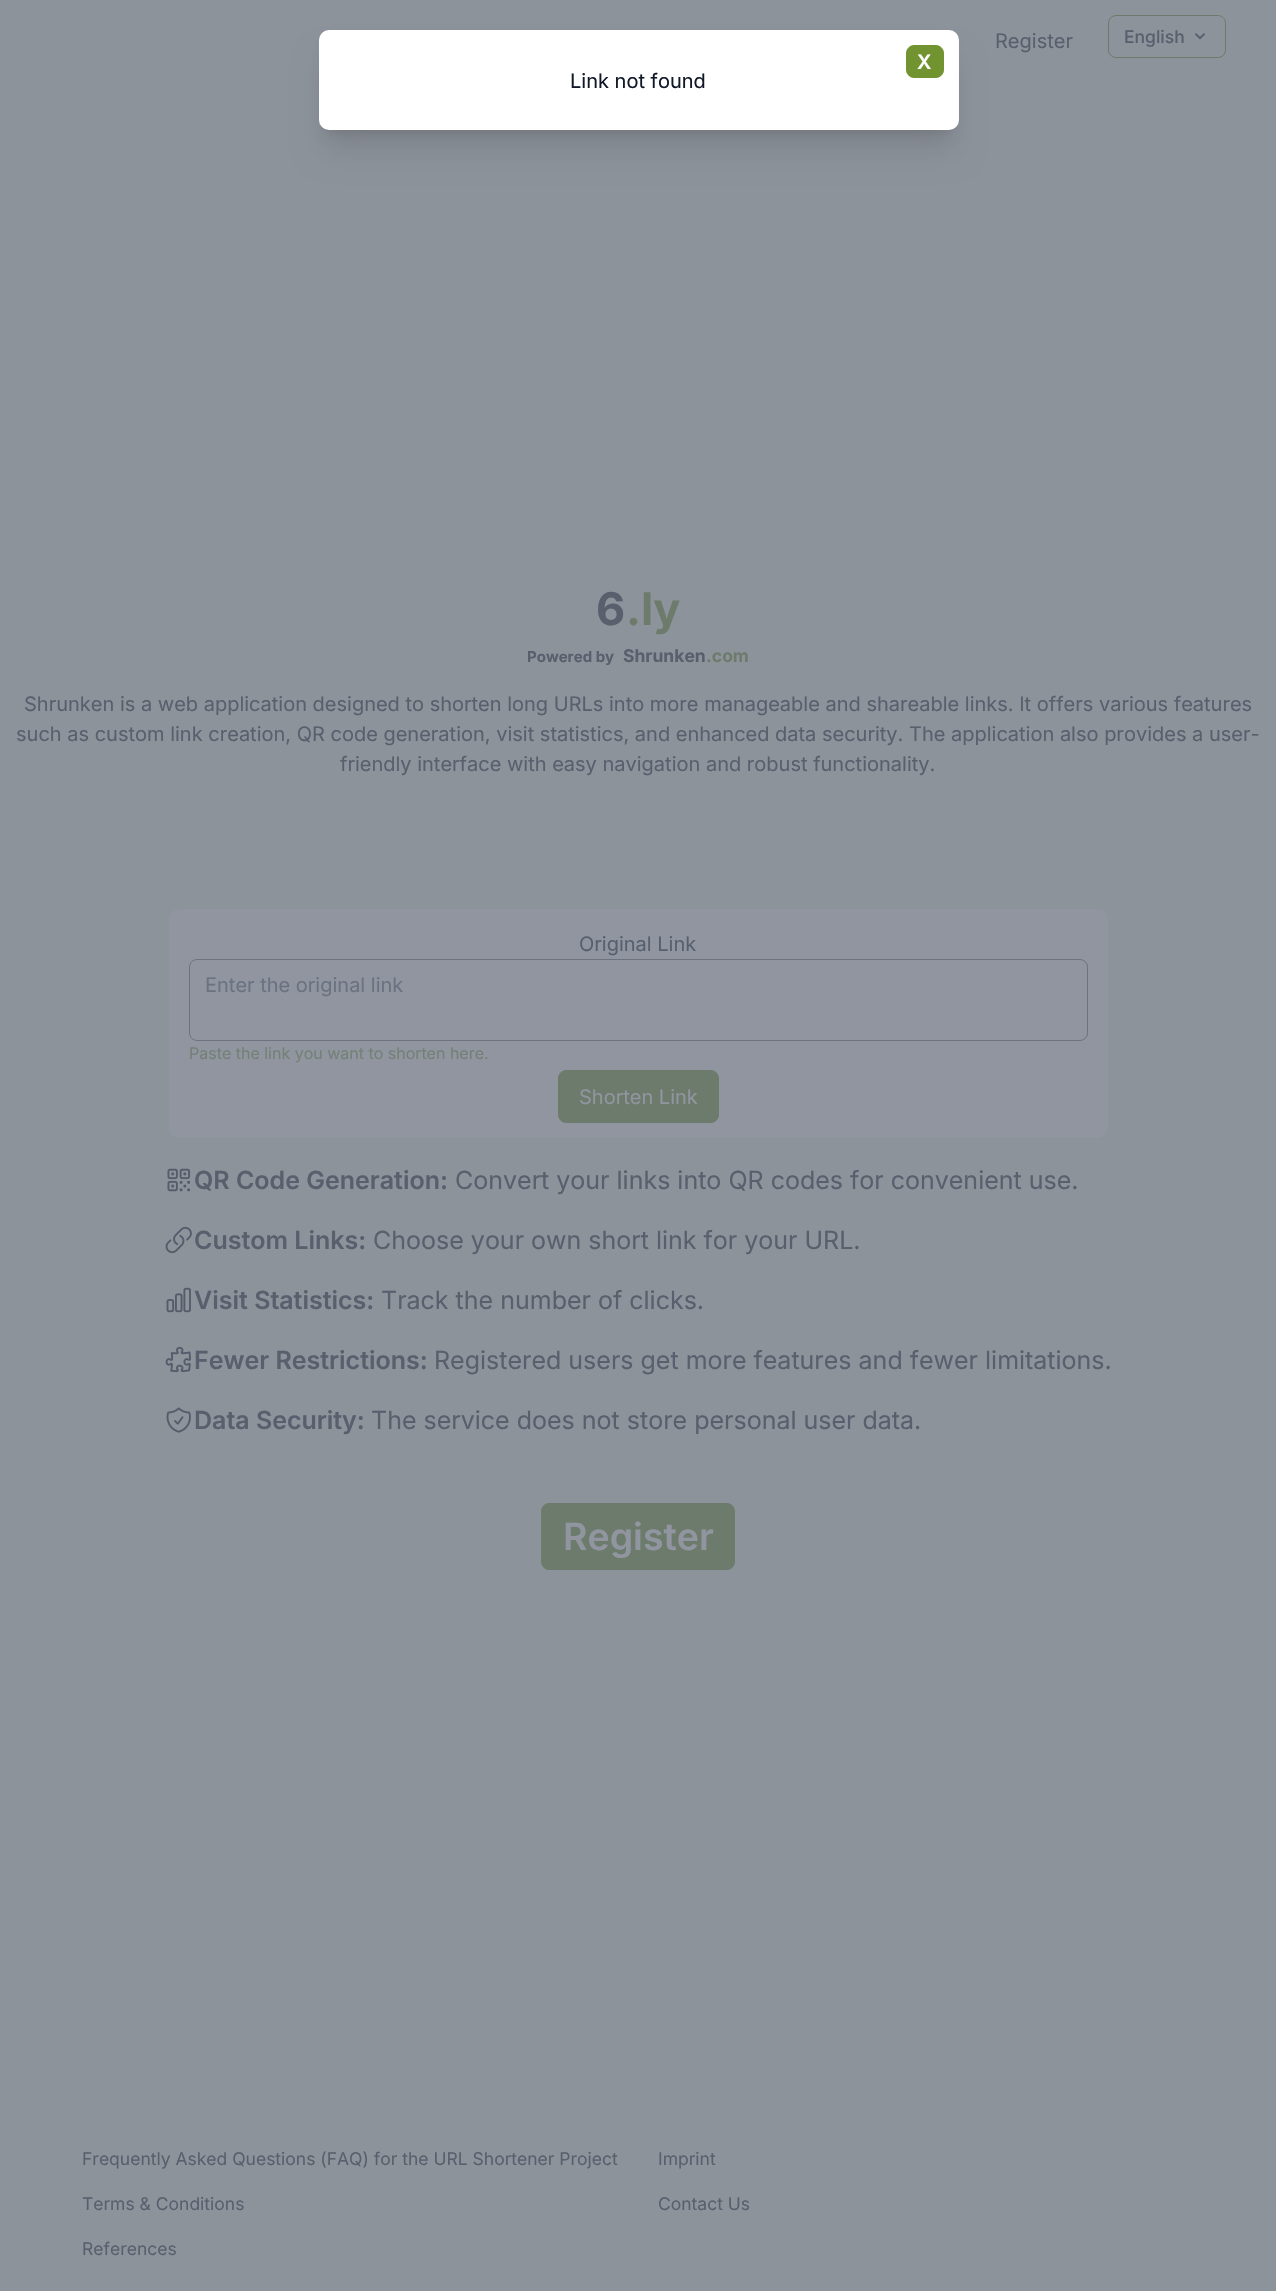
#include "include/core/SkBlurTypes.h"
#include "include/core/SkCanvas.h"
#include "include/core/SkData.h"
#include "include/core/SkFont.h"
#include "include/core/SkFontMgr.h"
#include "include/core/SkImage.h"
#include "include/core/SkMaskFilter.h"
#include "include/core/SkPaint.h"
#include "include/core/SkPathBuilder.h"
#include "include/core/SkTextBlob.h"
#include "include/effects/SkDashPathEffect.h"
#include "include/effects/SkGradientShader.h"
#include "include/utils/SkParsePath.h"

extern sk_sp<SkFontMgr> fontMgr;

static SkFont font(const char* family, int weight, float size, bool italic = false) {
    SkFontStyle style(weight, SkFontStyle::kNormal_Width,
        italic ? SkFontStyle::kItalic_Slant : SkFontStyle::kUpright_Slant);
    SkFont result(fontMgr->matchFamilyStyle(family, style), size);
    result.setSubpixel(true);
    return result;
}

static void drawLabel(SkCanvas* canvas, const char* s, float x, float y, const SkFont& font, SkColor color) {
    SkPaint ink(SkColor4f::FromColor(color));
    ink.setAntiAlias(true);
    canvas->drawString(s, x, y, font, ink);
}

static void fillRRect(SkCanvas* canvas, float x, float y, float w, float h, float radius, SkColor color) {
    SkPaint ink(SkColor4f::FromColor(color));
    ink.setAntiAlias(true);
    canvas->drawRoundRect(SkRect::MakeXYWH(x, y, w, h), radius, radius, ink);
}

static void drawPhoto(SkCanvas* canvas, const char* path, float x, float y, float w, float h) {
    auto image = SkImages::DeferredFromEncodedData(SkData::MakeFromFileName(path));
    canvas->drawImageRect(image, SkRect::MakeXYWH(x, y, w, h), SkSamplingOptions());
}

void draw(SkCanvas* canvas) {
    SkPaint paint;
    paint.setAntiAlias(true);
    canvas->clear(0xFF8D939B);
    SkFont font1 = font("Inter", 400, 20);
    drawLabel(canvas, "Register", 995, 48, font1, 0xFF58606E);
    paint.setStroke(true);
    paint.setStrokeWidth(1);
    paint.setColor(0xFF6D7B6C);
    canvas->drawRoundRect(SkRect::MakeXYWH(1108.5f, 15.5f, 117, 42), 7.5f, 7.5f, paint);
    SkFont font2 = font("Inter", 500, 17.5f);
    drawLabel(canvas, "English", 1124, 43, font2, 0xFF58606E);
    drawPhoto(canvas, "assets/img1.png", 1195, 33, 10, 7);
    paint.setStroke(false);
    paint.setColor(0x1A000000);
    paint.setMaskFilter(SkMaskFilter::MakeBlur(kNormal_SkBlurStyle, 6));
    canvas->drawRoundRect(SkRect::MakeXYWH(326, 48, 625, 85), 2.5f, 2.5f, paint);
    paint.setMaskFilter(nullptr);
    paint.setMaskFilter(SkMaskFilter::MakeBlur(kNormal_SkBlurStyle, 15.5f));
    canvas->drawRoundRect(SkRect::MakeXYWH(325, 61, 628, 88), 4, 4, paint);
    paint.setMaskFilter(nullptr);
    fillRRect(canvas, 319, 30, 640, 100, 10, 0xFFFFFFFF);
    paint.setColor(0xFF719430);
    canvas->drawRoundRect(SkRect::MakeXYWH(906.5f, 45.5f, 37, 32), 7.5f, 7.5f, paint);
    paint.setStroke(true);
    canvas->drawRoundRect(SkRect::MakeXYWH(906.5f, 45.5f, 37, 32), 7.5f, 7.5f, paint);
    SkFont font3 = font("Inter", 600, 20);
    drawLabel(canvas, "X", 917, 69, font3, 0xFFFFFFFF);
    drawLabel(canvas, "Link not found", 570, 88, font1, 0xFF111827);
    SkFont font4 = font("Inter", 700, 45);
    drawLabel(canvas, "6", 596, 625, font4, 0xFF58606E);
    drawLabel(canvas, ".ly", 626, 625, font4, 0xFF6D7B6C);
    SkFont font5 = font("Inter", 700, 15);
    drawLabel(canvas, "Powered by", 527, 662, font5, 0xFF58606E);
    SkFont font6 = font("Inter", 700, 17.5f);
    drawLabel(canvas, "Shrunken", 623, 662, font6, 0xFF58606E);
    drawLabel(canvas, ".com", 706, 662, font6, 0xFF6D7B6C);
    drawLabel(canvas, "Shrunken is a web application designed to shorten long URLs into more manageable and shareable links. It offers various features", 24, 711, font1, 0xFF58606E);
    drawLabel(canvas, "such as custom link creation, QR code generation, visit statistics, and enhanced data security. The application also provides a user-", 16, 741, font1, 0xFF58606E);
    drawLabel(canvas, "friendly interface with easy navigation and robust functionality.", 340, 771, font1, 0xFF58606E);
    fillRRect(canvas, 169, 909, 939, 229, 10, 0xFF9095A0);
    drawLabel(canvas, "Original Link", 579, 951, font1, 0xFF58606E);
    paint.setColor(0xFF6B7280);
    canvas->drawRoundRect(SkRect::MakeXYWH(189.5f, 959.5f, 898, 81), 7.5f, 7.5f, paint);
    drawLabel(canvas, "Enter the original link", 205, 992, font1, 0xFF6B7280);
    SkFont font7 = font("Inter", 400, 16);
    drawLabel(canvas, "Paste the link you want to shorten here.", 189, 1059, font7, 0xFF748076);
    paint.setStroke(false);
    paint.setColor(0xFF6D7B6C);
    canvas->drawRoundRect(SkRect::MakeXYWH(558.5f, 1070.5f, 160, 52), 7.5f, 7.5f, paint);
    paint.setStroke(true);
    canvas->drawRoundRect(SkRect::MakeXYWH(558.5f, 1070.5f, 160, 52), 7.5f, 7.5f, paint);
    drawLabel(canvas, "Shorten Link", 579, 1104, font1, 0xFF9095A0);
    drawPhoto(canvas, "assets/img2.png", 167, 1168, 23, 24);
    SkFont font8 = font("Inter", 600, 25);
    drawLabel(canvas, "QR Code Generation:", 194, 1189, font8, 0xFF58606E);
    SkFont font9 = font("Inter", 400, 25);
    drawLabel(canvas, "Convert your links into QR codes for convenient use.", 455, 1189, font9, 0xFF58606E);
    drawPhoto(canvas, "assets/img3.png", 165, 1226, 27, 28);
    drawLabel(canvas, "Custom Links:", 194, 1249, font8, 0xFF58606E);
    drawLabel(canvas, "Choose your own short link for your URL.", 373, 1249, font9, 0xFF58606E);
    drawPhoto(canvas, "assets/img4.png", 166, 1287, 25, 26);
    drawLabel(canvas, "Visit Statistics:", 194, 1309, font8, 0xFF58606E);
    drawLabel(canvas, "Track the number of clicks.", 381, 1309, font9, 0xFF58606E);
    drawPhoto(canvas, "assets/img5.png", 165, 1346, 26, 27);
    drawLabel(canvas, "Fewer Restrictions:", 194, 1369, font8, 0xFF58606E);
    drawLabel(canvas, "Registered users get more features and fewer limitations.", 434, 1369, font9, 0xFF58606E);
    drawPhoto(canvas, "assets/img6.png", 166, 1407, 25, 26);
    drawLabel(canvas, "Data Security:", 194, 1429, font8, 0xFF58606E);
    drawLabel(canvas, "The service does not store personal user data.", 371, 1429, font9, 0xFF58606E);
    paint.setStroke(false);
    canvas->drawRoundRect(SkRect::MakeXYWH(541.5f, 1503.5f, 193, 66), 7.5f, 7.5f, paint);
    paint.setStroke(true);
    canvas->drawRoundRect(SkRect::MakeXYWH(541.5f, 1503.5f, 193, 66), 7.5f, 7.5f, paint);
    SkFont font10 = font("Inter", 600, 37.5f);
    drawLabel(canvas, "Register", 563, 1550, font10, 0xFF9095A0);
    SkFont font11 = font("Inter", 400, 17.5f);
    drawLabel(canvas, "Frequently Asked Questions (FAQ) for the URL Shortener Project", 82, 2165, font11, 0xFF58606E);
    drawLabel(canvas, "Imprint", 658, 2165, font11, 0xFF58606E);
    drawLabel(canvas, "Terms & Conditions", 82, 2210, font11, 0xFF58606E);
    drawLabel(canvas, "Contact Us", 658, 2210, font11, 0xFF58606E);
    drawLabel(canvas, "References", 82, 2255, font11, 0xFF58606E);
}
